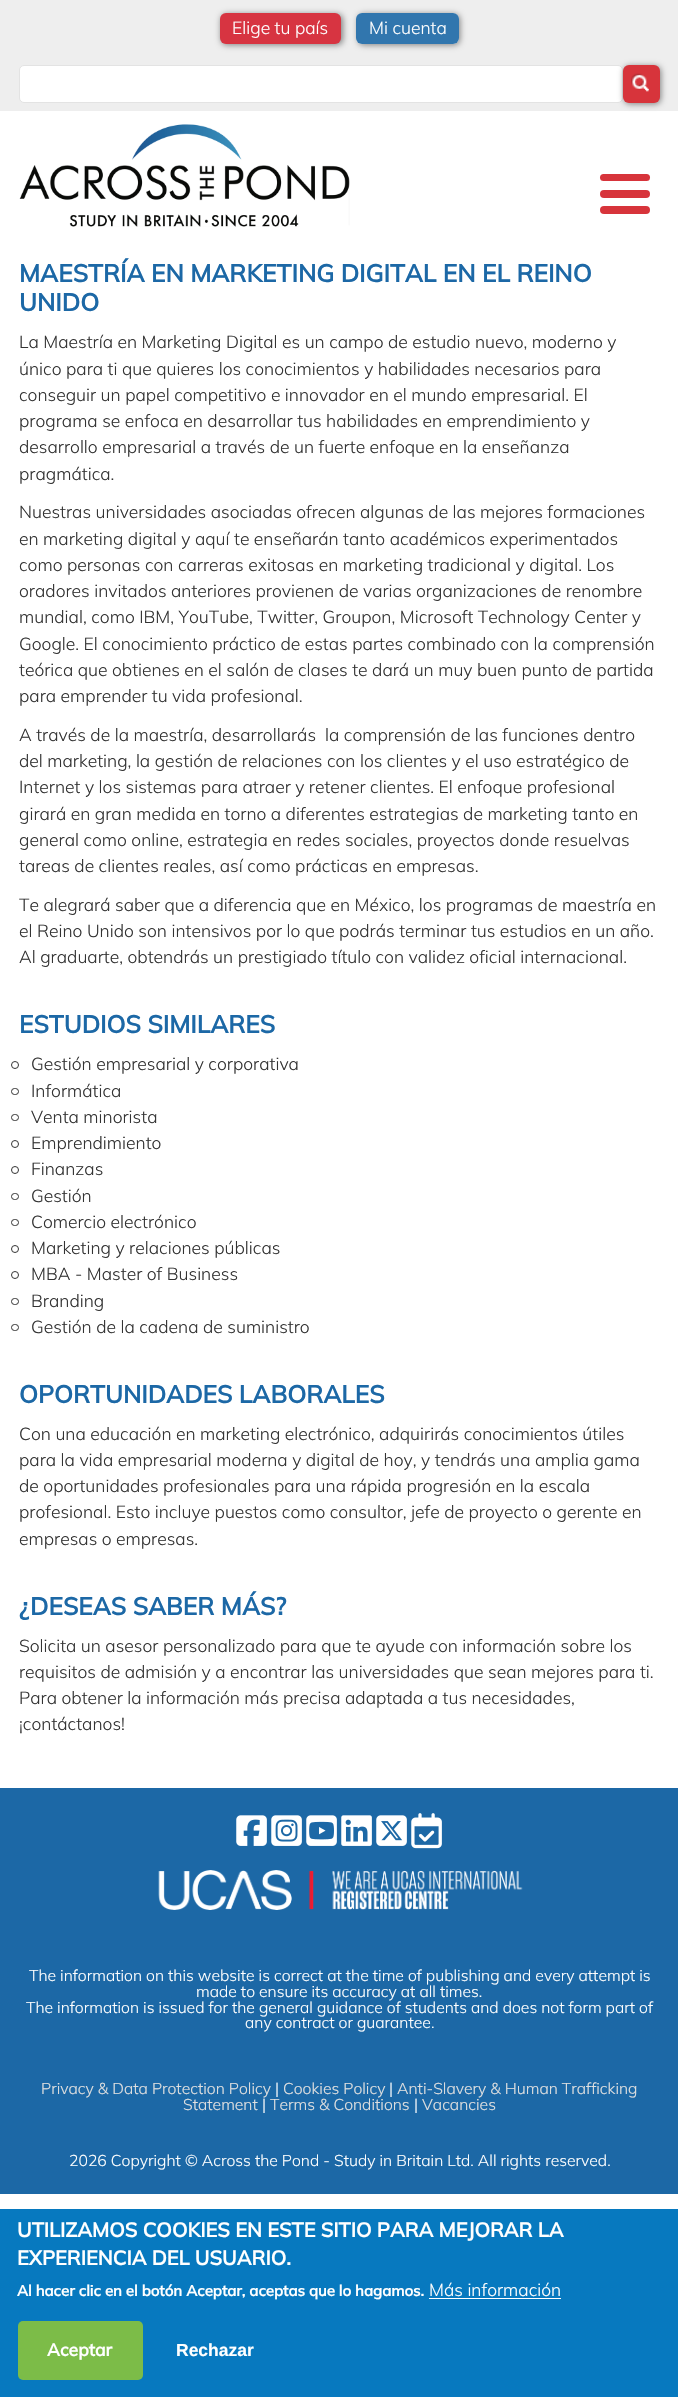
#include "include/core/SkBlurTypes.h"
#include "include/core/SkCanvas.h"
#include "include/core/SkData.h"
#include "include/core/SkFont.h"
#include "include/core/SkFontMgr.h"
#include "include/core/SkImage.h"
#include "include/core/SkMaskFilter.h"
#include "include/core/SkPaint.h"
#include "include/core/SkPathBuilder.h"
#include "include/core/SkTextBlob.h"
#include "include/effects/SkDashPathEffect.h"
#include "include/effects/SkGradientShader.h"
#include "include/utils/SkParsePath.h"

extern sk_sp<SkFontMgr> fontMgr;

static SkFont font(const char* family, int weight, float size, bool italic = false) {
    SkFontStyle style(weight, SkFontStyle::kNormal_Width,
        italic ? SkFontStyle::kItalic_Slant : SkFontStyle::kUpright_Slant);
    SkFont result(fontMgr->matchFamilyStyle(family, style), size);
    result.setSubpixel(true);
    return result;
}

static void drawLabel(SkCanvas* canvas, const char* s, float x, float y, const SkFont& font, SkColor color) {
    SkPaint ink(SkColor4f::FromColor(color));
    ink.setAntiAlias(true);
    canvas->drawString(s, x, y, font, ink);
}

static void fillRect(SkCanvas* canvas, float x, float y, float w, float h, SkColor color) {
    SkPaint ink(SkColor4f::FromColor(color));
    ink.setAntiAlias(true);
    canvas->drawRect(SkRect::MakeXYWH(x, y, w, h), ink);
}

static void fillRRect(SkCanvas* canvas, float x, float y, float w, float h, float radius, SkColor color) {
    SkPaint ink(SkColor4f::FromColor(color));
    ink.setAntiAlias(true);
    canvas->drawRoundRect(SkRect::MakeXYWH(x, y, w, h), radius, radius, ink);
}

static void drawPhoto(SkCanvas* canvas, const char* path, float x, float y, float w, float h) {
    auto image = SkImages::DeferredFromEncodedData(SkData::MakeFromFileName(path));
    canvas->drawImageRect(image, SkRect::MakeXYWH(x, y, w, h), SkSamplingOptions());
}

static SkPath parsePath(const char* data, bool evenOdd = false) {
    SkPath result = *SkParsePath::FromSVGString(data);
    if (evenOdd) result.setFillType(SkPathFillType::kEvenOdd);
    return result;
}

void draw(SkCanvas* canvas) {
    SkPaint paint;
    paint.setAntiAlias(true);
    canvas->clear(0xFFFFFFFF);
    fillRect(canvas, 0, 0, 678, 111, 0xFFEEEEEE);
    paint.setColor(0xFF808080);
    paint.setMaskFilter(SkMaskFilter::MakeBlur(kNormal_SkBlurStyle, 3));
    canvas->drawRoundRect(SkRect::MakeXYWH(221, 14, 122, 31), 6, 6, paint);
    paint.setMaskFilter(nullptr);
    fillRRect(canvas, 220, 13, 121, 31, 6, 0xFFD73441);
    SkFont font1 = font("Mulish", 300, 17.5f);
    drawLabel(canvas, "Elige tu país", 232, 34, font1, 0xFFFFFFFF);
    canvas->save();
    canvas->clipPath(parsePath("M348 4H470V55H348ZM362 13H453C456.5 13 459 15.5 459 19V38C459 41.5 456.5 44 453 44H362C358.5 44 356 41.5 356 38V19C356 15.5 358.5 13 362 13Z", true), true);
    paint.setMaskFilter(SkMaskFilter::MakeBlur(kNormal_SkBlurStyle, 3));
    canvas->drawRoundRect(SkRect::MakeXYWH(358, 14, 102, 31), 6, 6, paint);
    paint.setMaskFilter(nullptr);
    canvas->restore();
    fillRRect(canvas, 356, 13, 103, 31, 6, 0xE61C68A6);
    drawLabel(canvas, "Mi cuenta", 369, 34, font1, 0xFFFFFFFF);
    paint.setColor(0xFFFFFFFF);
    canvas->drawRoundRect(SkRect::MakeXYWH(19.5f, 65.5f, 603, 37), 4.5f, 4.5f, paint);
    paint.setStroke(true);
    paint.setStrokeWidth(1);
    paint.setColor(0xFFE3E3E3);
    canvas->drawRoundRect(SkRect::MakeXYWH(19.5f, 65.5f, 603, 37), 4.5f, 4.5f, paint);
    paint.setStroke(false);
    paint.setColor(0xFF808080);
    paint.setMaskFilter(SkMaskFilter::MakeBlur(kNormal_SkBlurStyle, 3));
    canvas->drawRoundRect(SkRect::MakeXYWH(624, 66, 37, 38), 6, 6, paint);
    paint.setMaskFilter(nullptr);
    fillRRect(canvas, 623, 65, 37, 38, 6, 0xFFD7343B);
    drawPhoto(canvas, "assets/img1.png", 631, 73, 18, 19);
    drawPhoto(canvas, "assets/img2.png", 19, 124, 331, 103);
    fillRRect(canvas, 600, 174, 50, 7, 3.5f, 0xFFD7343B);
    fillRRect(canvas, 600, 190, 50, 8, 4, 0xFFD7343B);
    fillRRect(canvas, 600, 206, 50, 8, 4, 0xFFD7343B);
    SkFont font2 = font("Mulish", 700, 24.5f);
    drawLabel(canvas, "MAESTRÍA EN MARKETING DIGITAL EN EL REINO", 19, 282, font2, 0xFF1C68A6);
    drawLabel(canvas, "UNIDO", 19, 311, font2, 0xFF1C68A6);
    drawLabel(canvas, "La Maestría en Marketing Digital es un campo de estudio nuevo, moderno y", 19, 348, font1, 0xFF333333);
    drawLabel(canvas, "único para ti que quieres los conocimientos y habilidades necesarios para", 19, 375, font1, 0xFF333333);
    drawLabel(canvas, "conseguir un papel competitivo e innovador en el mundo empresarial. El", 19, 401, font1, 0xFF333333);
    drawLabel(canvas, "programa se enfoca en desarrollar tus habilidades en emprendimiento y", 19, 427, font1, 0xFF333333);
    drawLabel(canvas, "desarrollo empresarial a través de un fuerte enfoque en la enseñanza", 19, 453, font1, 0xFF333333);
    drawLabel(canvas, "pragmática.", 19, 480, font1, 0xFF333333);
    drawLabel(canvas, "Nuestras universidades asociadas ofrecen algunas de las mejores formaciones", 19, 518, font1, 0xFF333333);
    drawLabel(canvas, "en marketing digital y aquí te enseñarán tanto académicos experimentados", 19, 545, font1, 0xFF333333);
    drawLabel(canvas, "como personas con carreras exitosas en marketing tradicional y digital. Los", 19, 571, font1, 0xFF333333);
    drawLabel(canvas, "oradores invitados anteriores provienen de varias organizaciones de renombre", 19, 597, font1, 0xFF333333);
    drawLabel(canvas, "mundial, como IBM, YouTube, Twitter, Groupon, Microsoft Technology Center y", 19, 623, font1, 0xFF333333);
    drawLabel(canvas, "Google. El conocimiento práctico de estas partes combinado con la comprensión", 19, 650, font1, 0xFF333333);
    drawLabel(canvas, "teórica que obtienes en el salón de clases te dará un muy buen punto de partida", 19, 676, font1, 0xFF333333);
    drawLabel(canvas, "para emprender tu vida profesional.", 19, 702, font1, 0xFF333333);
    drawLabel(canvas, "A través de la maestría, desarrollarás  la comprensión de las funciones dentro", 19, 741, font1, 0xFF333333);
    drawLabel(canvas, "del marketing, la gestión de relaciones con los clientes y el uso estratégico de", 19, 767, font1, 0xFF333333);
    drawLabel(canvas, "Internet y los sistemas para atraer y retener clientes. El enfoque profesional", 19, 793, font1, 0xFF333333);
    drawLabel(canvas, "girará en gran medida en torno a diferentes estrategias de marketing tanto en", 19, 820, font1, 0xFF333333);
    drawLabel(canvas, "general como online, estrategia en redes sociales, proyectos donde resuelvas", 19, 846, font1, 0xFF333333);
    drawLabel(canvas, "tareas de clientes reales, así como prácticas en empresas.", 19, 872, font1, 0xFF333333);
    drawLabel(canvas, "Te alegrará saber que a diferencia que en México, los programas de maestría en", 19, 911, font1, 0xFF333333);
    drawLabel(canvas, "el Reino Unido son intensivos por lo que podrás terminar tus estudios en un año.", 19, 937, font1, 0xFF333333);
    drawLabel(canvas, "Al graduarte, obtendrás un prestigiado título con validez oficial internacional.", 19, 963, font1, 0xFF333333);
    drawLabel(canvas, "ESTUDIOS SIMILARES", 19, 1033, font2, 0xFF1C68A6);
    paint.setStroke(true);
    paint.setColor(0xFF333333);
    canvas->drawCircle(15, 1065, 3.5f, paint);
    drawLabel(canvas, "Gestión empresarial y corporativa", 31, 1070, font1, 0xFF333333);
    canvas->drawRoundRect(SkRect::MakeXYWH(11.5f, 1088.5f, 7, 6), 3, 3, paint);
    drawLabel(canvas, "Informática", 31, 1097, font1, 0xFF333333);
    canvas->drawRoundRect(SkRect::MakeXYWH(11.5f, 1114.5f, 7, 6), 3, 3, paint);
    drawLabel(canvas, "Venta minorista", 31, 1123, font1, 0xFF333333);
    canvas->drawCircle(15, 1144, 3.5f, paint);
    drawLabel(canvas, "Emprendimiento", 31, 1149, font1, 0xFF333333);
    canvas->drawCircle(15, 1170, 3.5f, paint);
    drawLabel(canvas, "Finanzas", 31, 1175, font1, 0xFF333333);
    canvas->drawRoundRect(SkRect::MakeXYWH(11.5f, 1193.5f, 7, 6), 3, 3, paint);
    drawLabel(canvas, "Gestión", 31, 1202, font1, 0xFF333333);
    canvas->drawRoundRect(SkRect::MakeXYWH(11.5f, 1219.5f, 7, 6), 3, 3, paint);
    drawLabel(canvas, "Comercio electrónico", 31, 1228, font1, 0xFF333333);
    canvas->drawCircle(15, 1249, 3.5f, paint);
    drawLabel(canvas, "Marketing y relaciones públicas", 31, 1254, font1, 0xFF333333);
    canvas->drawCircle(15, 1275, 3.5f, paint);
    drawLabel(canvas, "MBA - Master of Business", 31, 1280, font1, 0xFF333333);
    canvas->drawRoundRect(SkRect::MakeXYWH(11.5f, 1298.5f, 7, 6), 3, 3, paint);
    drawLabel(canvas, "Branding", 31, 1307, font1, 0xFF333333);
    canvas->drawRoundRect(SkRect::MakeXYWH(11.5f, 1324.5f, 7, 6), 3, 3, paint);
    drawLabel(canvas, "Gestión de la cadena de suministro", 31, 1333, font1, 0xFF333333);
    drawLabel(canvas, "OPORTUNIDADES LABORALES", 19, 1403, font2, 0xFF1C68A6);
    drawLabel(canvas, "Con una educación en marketing electrónico, adquirirás conocimientos útiles", 19, 1440, font1, 0xFF333333);
    drawLabel(canvas, "para la vida empresarial moderna y digital de hoy, y tendrás una amplia gama", 19, 1466, font1, 0xFF333333);
    drawLabel(canvas, "de oportunidades profesionales para una rápida progresión en la escala", 19, 1492, font1, 0xFF333333);
    drawLabel(canvas, "profesional. Esto incluye puestos como consultor, jefe de proyecto o gerente en", 19, 1518, font1, 0xFF333333);
    drawLabel(canvas, "empresas o empresas.", 19, 1545, font1, 0xFF333333);
    drawLabel(canvas, "¿DESEAS SABER MÁS?", 19, 1615, font2, 0xFF1C68A6);
    drawLabel(canvas, "Solicita un asesor personalizado para que te ayude con información sobre los", 19, 1652, font1, 0xFF333333);
    drawLabel(canvas, "requisitos de admisión y a encontrar las universidades que sean mejores para ti.", 19, 1678, font1, 0xFF333333);
    drawLabel(canvas, "Para obtener la información más precisa adaptada a tus necesidades,", 19, 1704, font1, 0xFF333333);
    drawLabel(canvas, "¡contáctanos!", 19, 1730, font1, 0xFF333333);
    fillRect(canvas, 0, 1788, 678, 406, 0xFF1C68A6);
    drawPhoto(canvas, "assets/img3.png", 236, 1815, 31, 31);
    drawPhoto(canvas, "assets/img4.png", 271, 1815, 31, 31);
    drawPhoto(canvas, "assets/img5.png", 306, 1815, 31, 31);
    drawPhoto(canvas, "assets/img6.png", 341, 1815, 31, 31);
    drawPhoto(canvas, "assets/img7.png", 376, 1815, 31, 31);
    drawPhoto(canvas, "assets/img8.png", 411, 1813, 31, 36);
    drawPhoto(canvas, "assets/img9.png", 158, 1870, 365, 40);
    SkFont font3 = font("Mulish", 300, 15.75f);
    drawLabel(canvas, "The information on this website is correct at the time of publishing and every attempt is", 29, 1981, font3, 0xFFFFFFFF);
    drawLabel(canvas, "made to ensure its accuracy at all times.", 196, 1997, font3, 0xFFFFFFFF);
    drawLabel(canvas, "The information is issued for the general guidance of students and does not form part of", 26, 2013, font3, 0xFFFFFFFF);
    drawLabel(canvas, "any contract or guarantee.", 245, 2028, font3, 0xFFFFFFFF);
    drawLabel(canvas, "Privacy & Data Protection Policy", 41, 2094, font3, 0xFFE0E0E0);
    drawLabel(canvas, "|", 275, 2094, font3, 0xFFFFFFFF);
    drawLabel(canvas, "Cookies Policy", 283, 2094, font3, 0xFFE0E0E0);
    drawLabel(canvas, "|", 389, 2094, font3, 0xFFFFFFFF);
    drawLabel(canvas, "Anti-Slavery & Human Trafficking", 397, 2094, font3, 0xFFE0E0E0);
    drawLabel(canvas, "Statement", 183, 2110, font3, 0xFFE0E0E0);
    drawLabel(canvas, "|", 262, 2110, font3, 0xFFFFFFFF);
    drawLabel(canvas, "Terms & Conditions", 270, 2110, font3, 0xFFE0E0E0);
    drawLabel(canvas, "|", 414, 2110, font3, 0xFFFFFFFF);
    drawLabel(canvas, "Vacancies", 422, 2110, font3, 0xFFE0E0E0);
    drawLabel(canvas, "2026 Copyright © Across the Pond - Study in Britain Ltd. All rights reserved.", 69, 2166, font3, 0xFFFFFFFF);
    fillRect(canvas, 0, 2209, 678, 188, 0xFF0779BF);
    SkFont font4 = font("Mulish", 700, 20);
    drawLabel(canvas, "UTILIZAMOS COOKIES EN ESTE SITIO PARA MEJORAR LA", 17, 2237, font4, 0xFFFFFFFF);
    drawLabel(canvas, "EXPERIENCIA DEL USUARIO.", 17, 2265, font4, 0xFFFFFFFF);
    SkFont font5 = font("Mulish", 700, 15);
    drawLabel(canvas, "Al hacer clic en el botón Aceptar, aceptas que lo hagamos.", 17, 2296, font5, 0xFFFFFFFF);
    drawLabel(canvas, "Más información", 429, 2296, font1, 0xFFFFFFFF);
    fillRect(canvas, 429, 2298, 132, 1, 0xFFFFFFFF);
    fillRRect(canvas, 18, 2321, 125, 59, 5, 0xFF7CBC48);
    SkFont font6 = font("Mulish", 700, 17.5f);
    drawLabel(canvas, "Aceptar", 47, 2356, font6, 0xFFFFFFFF);
    SkFont font7 = font("Liberation Sans", 700, 17.5f);
    drawLabel(canvas, "Rechazar", 176, 2356, font7, 0xFFFFFFFF);
}
